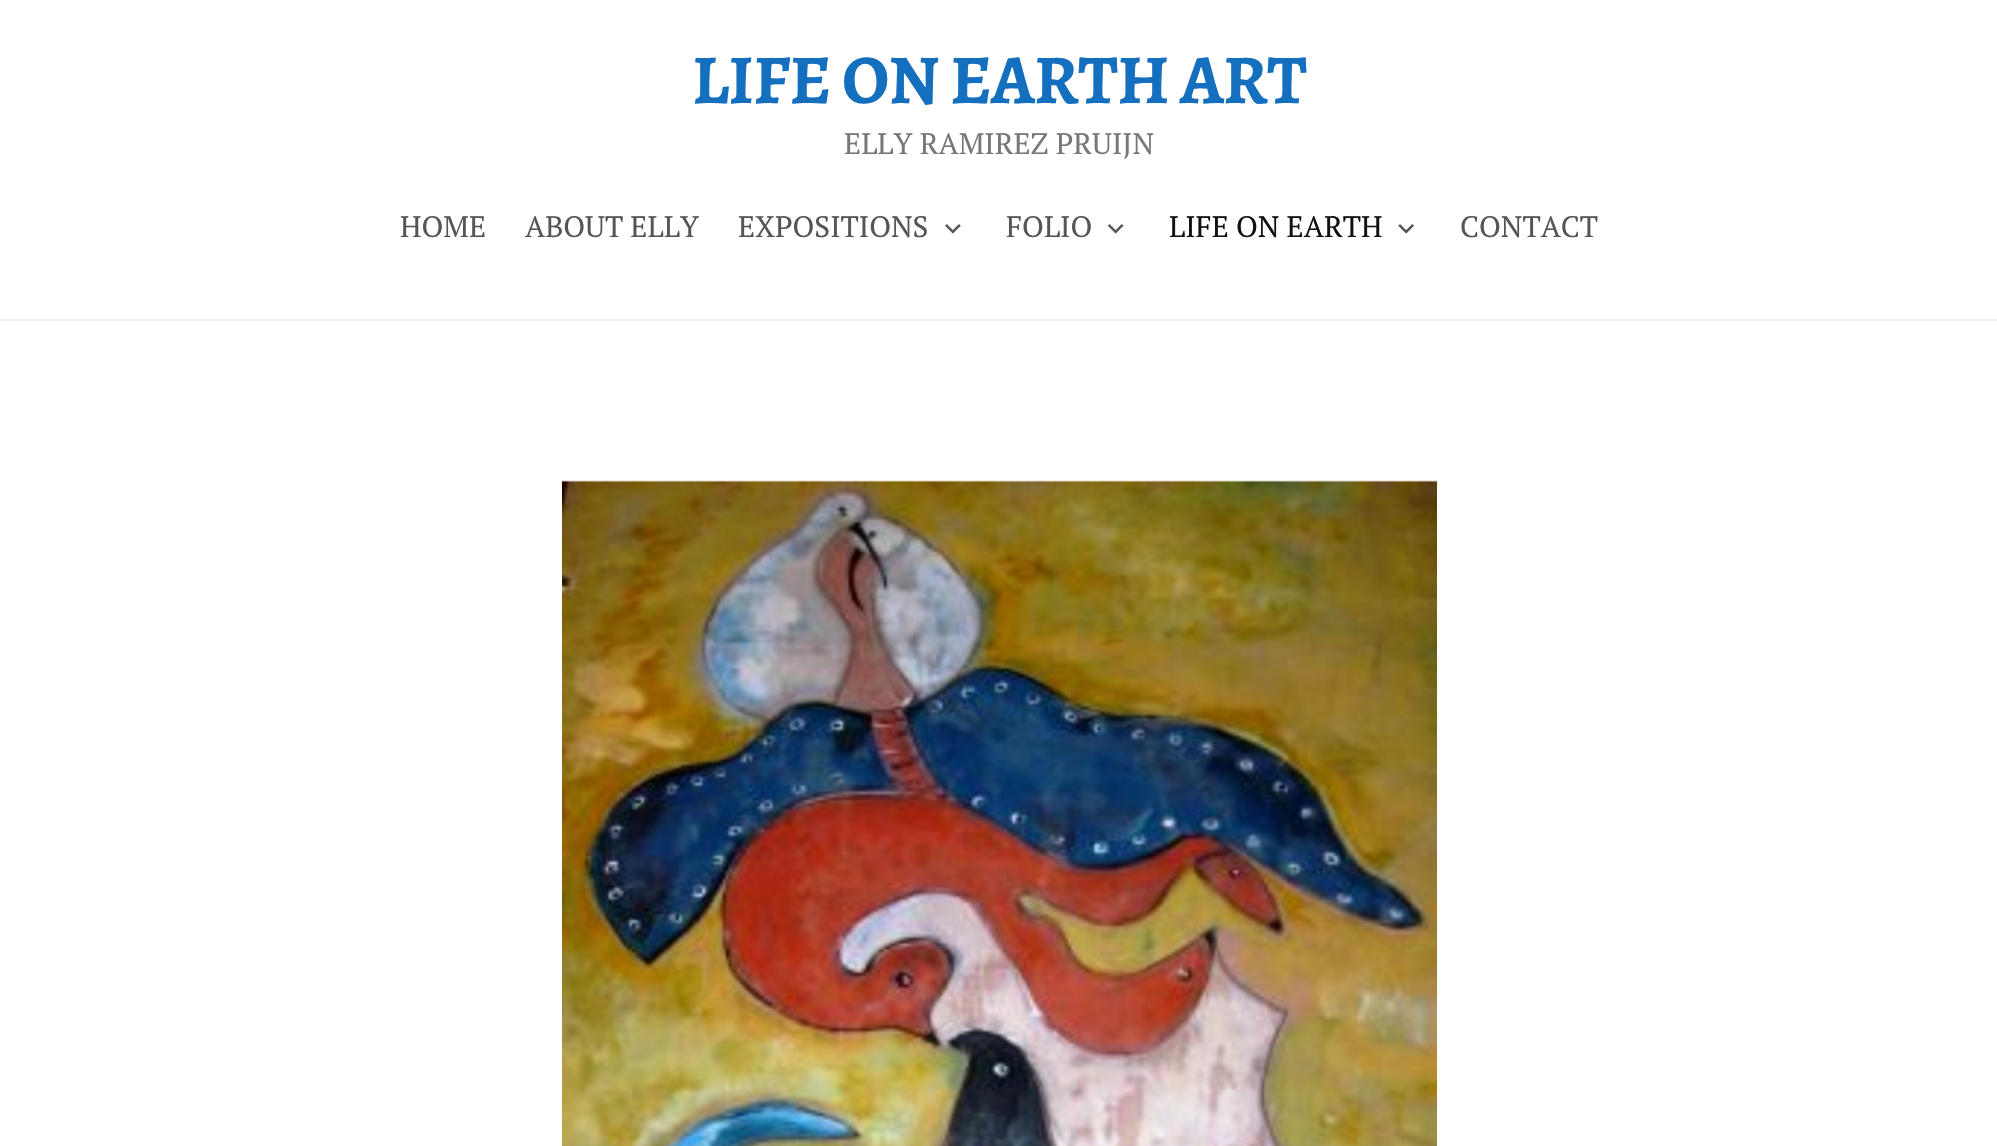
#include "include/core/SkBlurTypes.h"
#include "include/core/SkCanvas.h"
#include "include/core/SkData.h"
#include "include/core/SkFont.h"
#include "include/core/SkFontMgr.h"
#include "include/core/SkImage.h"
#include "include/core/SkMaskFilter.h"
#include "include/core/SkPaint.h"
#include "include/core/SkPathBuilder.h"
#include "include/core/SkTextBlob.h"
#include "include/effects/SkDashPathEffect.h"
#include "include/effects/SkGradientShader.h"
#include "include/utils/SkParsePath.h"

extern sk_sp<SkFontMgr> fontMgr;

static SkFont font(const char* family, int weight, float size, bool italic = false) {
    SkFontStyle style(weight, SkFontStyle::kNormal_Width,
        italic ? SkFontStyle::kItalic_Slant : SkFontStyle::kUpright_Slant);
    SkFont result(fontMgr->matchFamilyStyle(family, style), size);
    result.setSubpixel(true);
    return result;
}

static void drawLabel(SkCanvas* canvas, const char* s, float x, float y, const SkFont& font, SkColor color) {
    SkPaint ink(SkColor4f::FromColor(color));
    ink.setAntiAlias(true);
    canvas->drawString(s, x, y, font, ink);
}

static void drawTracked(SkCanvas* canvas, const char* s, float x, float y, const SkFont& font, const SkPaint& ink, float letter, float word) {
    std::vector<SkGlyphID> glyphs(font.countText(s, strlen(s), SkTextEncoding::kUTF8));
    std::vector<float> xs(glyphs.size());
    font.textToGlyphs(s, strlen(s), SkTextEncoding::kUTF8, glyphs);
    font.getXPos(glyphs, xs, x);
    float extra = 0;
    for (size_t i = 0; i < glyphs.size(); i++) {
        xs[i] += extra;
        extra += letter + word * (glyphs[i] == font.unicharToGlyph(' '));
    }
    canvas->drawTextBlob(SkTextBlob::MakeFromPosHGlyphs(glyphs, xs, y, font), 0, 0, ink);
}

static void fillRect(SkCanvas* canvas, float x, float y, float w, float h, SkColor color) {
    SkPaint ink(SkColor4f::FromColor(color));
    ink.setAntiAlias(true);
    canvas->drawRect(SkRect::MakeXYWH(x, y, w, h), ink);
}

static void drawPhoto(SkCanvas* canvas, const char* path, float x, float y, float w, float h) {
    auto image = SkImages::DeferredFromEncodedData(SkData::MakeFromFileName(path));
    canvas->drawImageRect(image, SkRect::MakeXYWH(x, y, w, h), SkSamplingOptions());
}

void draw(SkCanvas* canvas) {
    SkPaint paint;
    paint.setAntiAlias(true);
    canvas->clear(0xFFFFFFFF);
    fillRect(canvas, 0, 319, 1997, 2, 0xFFEEEEEE);
    SkFont font1 = font("Alegreya", 700, 70);
    paint.setColor(0xFF156FBF);
    drawTracked(canvas, "LIFE ON EARTH ART", 692, 103, font1, paint, -0.75f, 0);
    SkFont font2 = font("PT Serif", 400, 29.5f);
    drawLabel(canvas, "ELLY RAMIREZ PRUIJN", 844, 154, font2, 0xFF777777);
    drawLabel(canvas, "HOME", 400, 237, font2, 0xFF555555);
    drawLabel(canvas, "ABOUT ELLY", 525, 237, font2, 0xFF555555);
    drawLabel(canvas, "EXPOSITIONS", 738, 237, font2, 0xFF555555);
    drawPhoto(canvas, "assets/img1.png", 945, 224, 16, 10);
    drawLabel(canvas, "FOLIO", 1006, 237, font2, 0xFF555555);
    drawPhoto(canvas, "assets/img2.png", 1107, 224, 17, 10);
    drawLabel(canvas, "LIFE ON EARTH", 1169, 237, font2, 0xFF111111);
    drawPhoto(canvas, "assets/img3.png", 1398, 224, 16, 10);
    drawLabel(canvas, "CONTACT", 1460, 237, font2, 0xFF555555);
    drawPhoto(canvas, "assets/img4.png", 562, 480, 875, 666);
}
